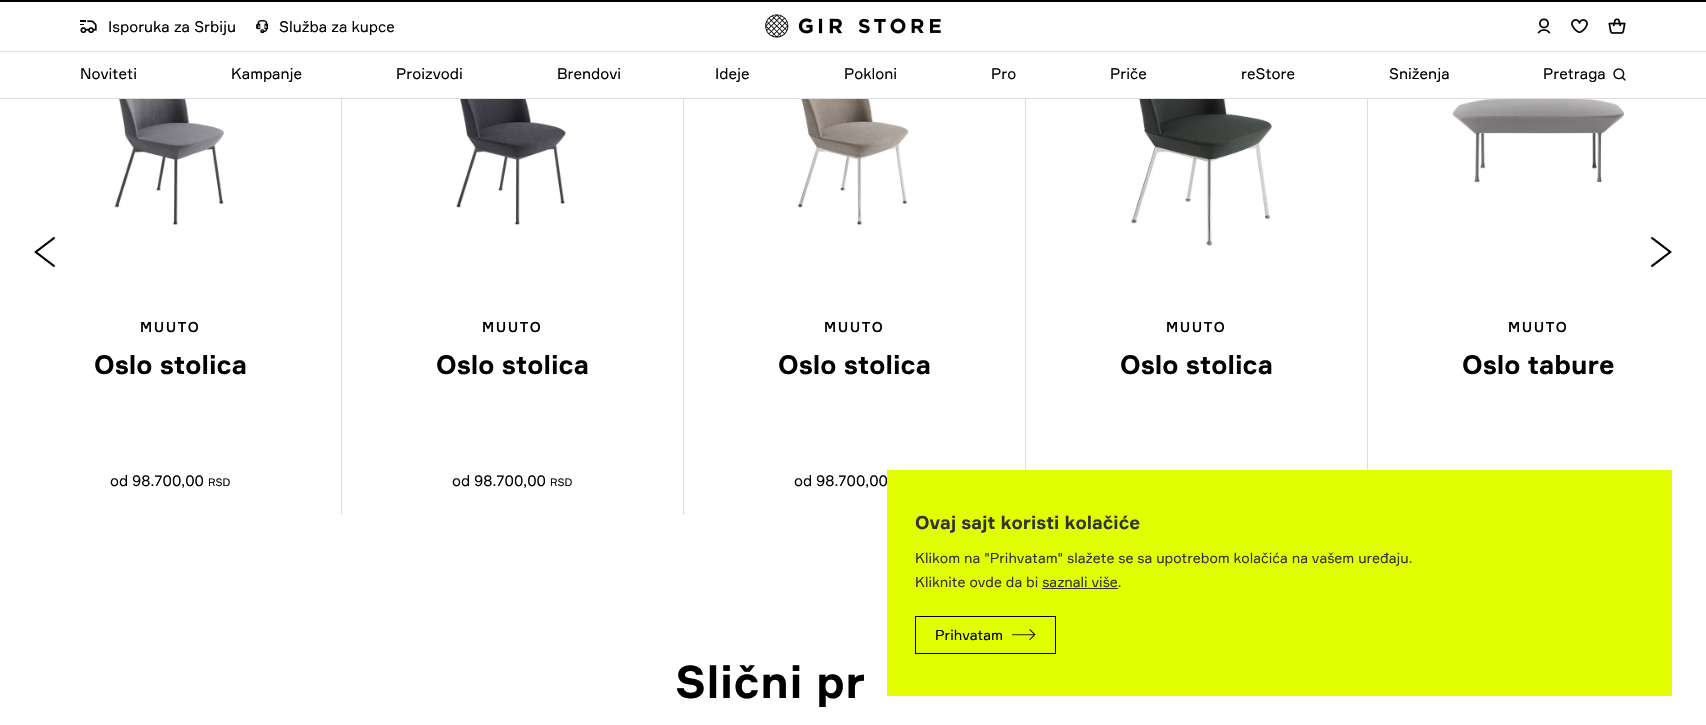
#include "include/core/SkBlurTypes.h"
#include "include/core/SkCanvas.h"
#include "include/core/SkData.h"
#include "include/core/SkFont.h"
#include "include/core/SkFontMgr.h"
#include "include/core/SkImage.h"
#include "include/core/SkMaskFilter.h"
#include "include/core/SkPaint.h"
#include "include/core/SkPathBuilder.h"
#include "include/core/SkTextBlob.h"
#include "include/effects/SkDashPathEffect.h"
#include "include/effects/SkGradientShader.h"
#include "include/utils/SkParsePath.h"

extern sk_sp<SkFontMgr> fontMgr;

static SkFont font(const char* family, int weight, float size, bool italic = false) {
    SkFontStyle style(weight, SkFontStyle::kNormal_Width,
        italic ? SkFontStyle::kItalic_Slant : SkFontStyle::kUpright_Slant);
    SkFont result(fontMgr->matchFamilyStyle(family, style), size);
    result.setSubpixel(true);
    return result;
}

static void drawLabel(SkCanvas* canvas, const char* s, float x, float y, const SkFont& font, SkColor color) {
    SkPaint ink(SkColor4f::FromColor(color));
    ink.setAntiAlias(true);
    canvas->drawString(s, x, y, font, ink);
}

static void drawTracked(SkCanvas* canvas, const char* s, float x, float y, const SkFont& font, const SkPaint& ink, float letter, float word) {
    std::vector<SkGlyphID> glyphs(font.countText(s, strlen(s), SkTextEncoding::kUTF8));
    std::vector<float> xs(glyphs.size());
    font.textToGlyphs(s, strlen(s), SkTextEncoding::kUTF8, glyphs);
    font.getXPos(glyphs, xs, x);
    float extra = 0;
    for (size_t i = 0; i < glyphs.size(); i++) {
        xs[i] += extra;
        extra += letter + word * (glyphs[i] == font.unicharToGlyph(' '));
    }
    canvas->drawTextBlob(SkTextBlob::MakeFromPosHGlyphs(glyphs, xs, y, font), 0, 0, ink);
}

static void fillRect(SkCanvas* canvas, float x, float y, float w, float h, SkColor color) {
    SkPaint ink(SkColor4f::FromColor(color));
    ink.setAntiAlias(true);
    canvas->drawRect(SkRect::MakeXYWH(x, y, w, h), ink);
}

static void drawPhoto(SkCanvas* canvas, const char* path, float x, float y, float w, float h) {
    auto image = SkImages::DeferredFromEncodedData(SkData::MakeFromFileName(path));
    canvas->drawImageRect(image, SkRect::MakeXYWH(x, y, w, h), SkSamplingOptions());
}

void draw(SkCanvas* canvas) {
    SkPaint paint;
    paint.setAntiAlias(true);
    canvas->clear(0xFFFFFFFF);
    fillRect(canvas, 0, 0, 1706, 2, 0xFF000000);
    drawPhoto(canvas, "assets/img1.png", 80, 20, 17, 13);
    SkFont font1 = font("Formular", 400, 15);
    drawLabel(canvas, "Isporuka za Srbiju", 108, 32, font1, 0xFF000000);
    drawPhoto(canvas, "assets/img2.png", 256, 20, 12, 13);
    drawLabel(canvas, "Služba za kupce", 279, 32, font1, 0xFF000000);
    drawPhoto(canvas, "assets/img3.png", 765, 14, 176, 24);
    drawPhoto(canvas, "assets/img4.png", 1537, 18, 14, 16);
    drawPhoto(canvas, "assets/img5.png", 1571, 19, 17, 14);
    drawPhoto(canvas, "assets/img6.png", 1608, 18, 18, 16);
    fillRect(canvas, 0, 51, 1706, 1, 0xFFDDDDDD);
    fillRect(canvas, 0, 98, 1706, 1, 0xFFDDDDDD);
    drawLabel(canvas, "Noviteti", 80, 79, font1, 0xFF000000);
    drawLabel(canvas, "Kampanje", 231, 79, font1, 0xFF000000);
    drawLabel(canvas, "Proizvodi", 396, 79, font1, 0xFF000000);
    drawLabel(canvas, "Brendovi", 557, 79, font1, 0xFF000000);
    drawLabel(canvas, "Ideje", 715, 79, font1, 0xFF000000);
    drawLabel(canvas, "Pokloni", 844, 79, font1, 0xFF000000);
    drawLabel(canvas, "Pro", 991, 79, font1, 0xFF000000);
    drawLabel(canvas, "Priče", 1110, 79, font1, 0xFF000000);
    drawLabel(canvas, "reStore", 1241, 79, font1, 0xFF000000);
    drawLabel(canvas, "Sniženja", 1389, 79, font1, 0xFF000000);
    drawLabel(canvas, "Pretraga", 1543, 79, font1, 0xFF000000);
    drawPhoto(canvas, "assets/img7.png", 1613, 68, 13, 13);
    drawPhoto(canvas, "assets/img8.png", 34, 237, 21, 30);
    drawPhoto(canvas, "assets/img9.png", 1651, 237, 21, 30);
    fillRect(canvas, 341, 99, 1, 416, 0xFFDDDDDD);
    drawPhoto(canvas, "assets/img10.png", 113, 99, 111, 126);
    SkFont font2 = font("Formular", 500, 14);
    paint.setColor(0xFF000000);
    drawTracked(canvas, "MUUTO", 140, 332, font2, paint, 1.5f, 0);
    SkFont font3 = font("Formular", 700, 26);
    drawLabel(canvas, "Oslo stolica", 94, 374, font3, 0xFF000000);
    drawLabel(canvas, "od 98.700,00", 110, 486, font1, 0xFF000000);
    SkFont font4 = font("Formular", 400, 10.5f);
    drawLabel(canvas, "RSD", 208, 486, font4, 0xFF000000);
    fillRect(canvas, 683, 99, 1, 416, 0xFFDDDDDD);
    drawPhoto(canvas, "assets/img11.png", 455, 99, 111, 126);
    drawTracked(canvas, "MUUTO", 482, 332, font2, paint, 1.5f, 0);
    drawLabel(canvas, "Oslo stolica", 436, 374, font3, 0xFF000000);
    drawLabel(canvas, "od 98.700,00", 452, 486, font1, 0xFF000000);
    drawLabel(canvas, "RSD", 550, 486, font4, 0xFF000000);
    fillRect(canvas, 1025, 99, 1, 371, 0xFFDDDDDD);
    drawPhoto(canvas, "assets/img12.png", 796, 99, 113, 126);
    drawTracked(canvas, "MUUTO", 824, 332, font2, paint, 1.5f, 0);
    drawLabel(canvas, "Oslo stolica", 778, 374, font3, 0xFF000000);
    drawLabel(canvas, "od 98.700,00", 794, 486, font1, 0xFF000000);
    fillRect(canvas, 1367, 99, 1, 371, 0xFFDDDDDD);
    drawPhoto(canvas, "assets/img13.png", 1128, 99, 144, 147);
    drawTracked(canvas, "MUUTO", 1166, 332, font2, paint, 1.5f, 0);
    drawLabel(canvas, "Oslo stolica", 1120, 374, font3, 0xFF000000);
    drawPhoto(canvas, "assets/img14.png", 1452, 99, 173, 84);
    drawTracked(canvas, "MUUTO", 1508, 332, font2, paint, 1.5f, 0);
    drawLabel(canvas, "Oslo tabure", 1462, 374, font3, 0xFF000000);
    SkFont font5 = font("Formular", 700, 45);
    drawTracked(canvas, "Slični pr", 675, 698, font5, paint, 0.5f, 0);
    fillRect(canvas, 887, 470, 785, 226, 0xFFE2FF00);
    SkFont font6 = font("Formular", 700, 18.25f);
    drawLabel(canvas, "Ovaj sajt koristi kolačiće", 915, 529, font6, 0xFF333333);
    SkFont font7 = font("Formular", 400, 14);
    drawLabel(canvas, "Klikom na \"Prihvatam\" slažete se sa upotrebom kolačića na vašem uređaju.", 915, 563, font7, 0xFF333333);
    drawLabel(canvas, "Kliknite ovde da bi saznali više.", 915, 587, font7, 0xFF333333);
    fillRect(canvas, 1042, 588, 76, 1, 0xFF333333);
    paint.setStroke(true);
    paint.setStrokeWidth(1);
    canvas->drawRect(SkRect::MakeXYWH(915.5f, 616.5f, 140, 37), paint);
    drawLabel(canvas, "Prihvatam", 935, 640, font7, 0xFF000000);
    drawPhoto(canvas, "assets/img15.png", 1012, 629, 24, 11);
}
